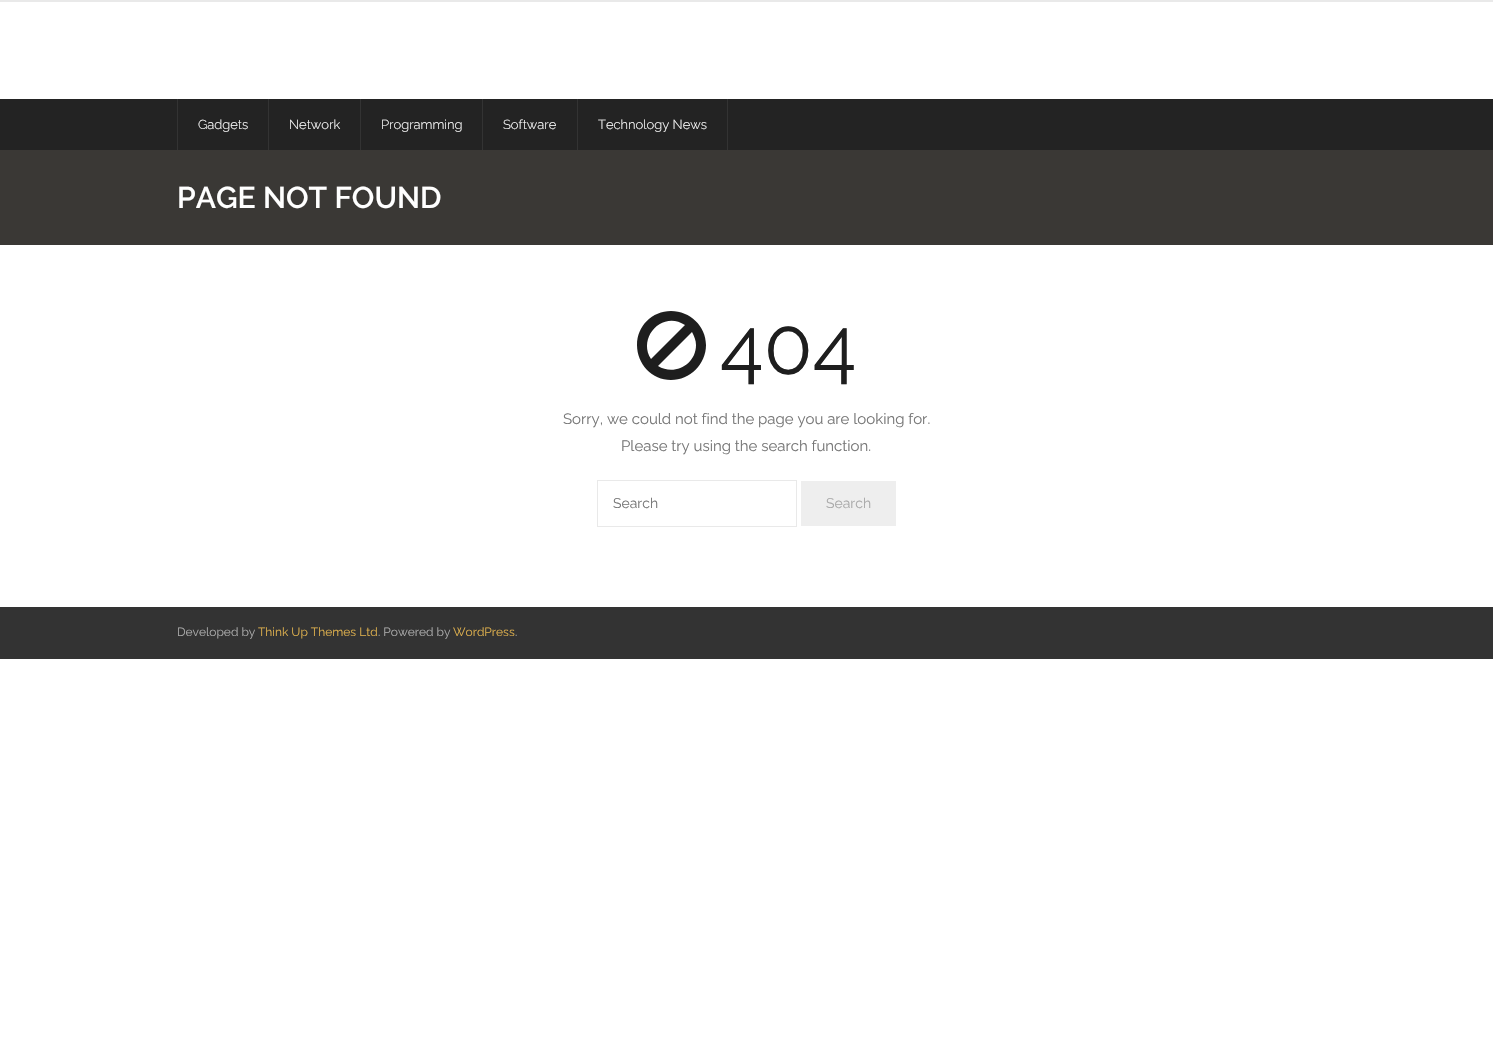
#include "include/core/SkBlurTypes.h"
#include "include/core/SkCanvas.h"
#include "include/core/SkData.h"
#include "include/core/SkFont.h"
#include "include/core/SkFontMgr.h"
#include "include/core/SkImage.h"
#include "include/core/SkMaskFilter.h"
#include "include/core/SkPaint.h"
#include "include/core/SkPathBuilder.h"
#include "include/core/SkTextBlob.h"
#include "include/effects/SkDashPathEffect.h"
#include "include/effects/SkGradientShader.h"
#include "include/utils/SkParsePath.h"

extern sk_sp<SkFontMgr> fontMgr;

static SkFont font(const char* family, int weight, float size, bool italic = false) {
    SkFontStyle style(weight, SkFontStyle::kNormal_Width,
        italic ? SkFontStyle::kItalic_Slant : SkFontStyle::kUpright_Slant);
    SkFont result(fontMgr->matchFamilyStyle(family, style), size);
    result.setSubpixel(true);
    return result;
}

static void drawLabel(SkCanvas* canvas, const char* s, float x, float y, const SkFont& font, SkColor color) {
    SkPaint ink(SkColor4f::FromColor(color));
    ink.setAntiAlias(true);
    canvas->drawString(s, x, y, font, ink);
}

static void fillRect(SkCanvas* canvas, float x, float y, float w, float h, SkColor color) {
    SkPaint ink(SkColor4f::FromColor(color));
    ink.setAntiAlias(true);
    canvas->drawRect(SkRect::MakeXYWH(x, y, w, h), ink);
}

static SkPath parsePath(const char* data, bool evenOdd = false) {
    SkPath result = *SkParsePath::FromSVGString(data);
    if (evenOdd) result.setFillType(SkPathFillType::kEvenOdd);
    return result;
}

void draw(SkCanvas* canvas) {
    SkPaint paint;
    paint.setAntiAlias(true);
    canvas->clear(0xFFFFFFFF);
    fillRect(canvas, 0, 0, 1493, 2, 0xFFE9E9E9);
    fillRect(canvas, 0, 99, 1493, 51, 0xFF232323);
    fillRect(canvas, 177, 99, 1, 51, 0xFF333333);
    SkFont font1 = font("Raleway", 300, 13);
    drawLabel(canvas, "Gadgets", 198, 129, font1, 0xFFFFFFFF);
    fillRect(canvas, 268, 99, 1, 51, 0xFF333333);
    drawLabel(canvas, "Network", 289, 129, font1, 0xFFFFFFFF);
    fillRect(canvas, 360, 99, 1, 51, 0xFF333333);
    drawLabel(canvas, "Programming", 381, 129, font1, 0xFFFFFFFF);
    fillRect(canvas, 482, 99, 1, 51, 0xFF333333);
    drawLabel(canvas, "Software", 503, 129, font1, 0xFFFFFFFF);
    fillRect(canvas, 727, 99, 1, 51, 0xFF333333);
    fillRect(canvas, 577, 99, 1, 51, 0xFF333333);
    drawLabel(canvas, "Technology News", 598, 129, font1, 0xFFFFFFFF);
    fillRect(canvas, 0, 150, 1493, 95, 0xFF3A3835);
    SkFont font2 = font("Raleway", 600, 30);
    drawLabel(canvas, "PAGE NOT FOUND", 177, 208, font2, 0xFFFFFFFF);
    paint.setColor(0xFF1E1E1E);
    canvas->drawPath(parsePath("M696 345C696 365 674 376 658 366L692 332C694 336 696 340 696 345ZM651 359C637 337 663 310 685 325ZM706 345C706 326 690 311 671 311C652 311 637 326 637 345C637 364 652 380 671 380C690 380 706 364 706 345Z"), paint);
    SkFont font3 = font("Raleway", 400, 80);
    drawLabel(canvas, "404", 720, 374, font3, 0xFF1E1E1E);
    SkFont font4 = font("Raleway", 400, 15);
    drawLabel(canvas, "Sorry, we could not find the page you are looking for.", 563, 424, font4, 0xFF777777);
    drawLabel(canvas, "Please try using the search function.", 621, 451, font4, 0xFF777777);
    paint.setStroke(true);
    paint.setStrokeWidth(1);
    paint.setColor(0xFFE9E9E9);
    canvas->drawRect(SkRect::MakeXYWH(597.5f, 480.5f, 199, 46), paint);
    SkFont font5 = font("Raleway", 400, 14);
    drawLabel(canvas, "Search", 613, 508, font5, 0xFF777777);
    fillRect(canvas, 801, 481, 95, 45, 0xFFEEEEEE);
    drawLabel(canvas, "Search", 826, 508, font5, 0xFFAAAAAA);
    fillRect(canvas, 0, 607, 1493, 52, 0xFF333333);
    SkFont font6 = font("Raleway", 400, 12);
    drawLabel(canvas, "Developed by", 177, 636, font6, 0xFFAAAAAA);
    drawLabel(canvas, "Think Up Themes Ltd", 258, 636, font6, 0xFFDDAF4D);
    drawLabel(canvas, ". Powered by", 378, 636, font6, 0xFFAAAAAA);
    drawLabel(canvas, "WordPress", 453, 636, font6, 0xFFDDAF4D);
    drawLabel(canvas, ".", 515, 636, font6, 0xFFAAAAAA);
}
